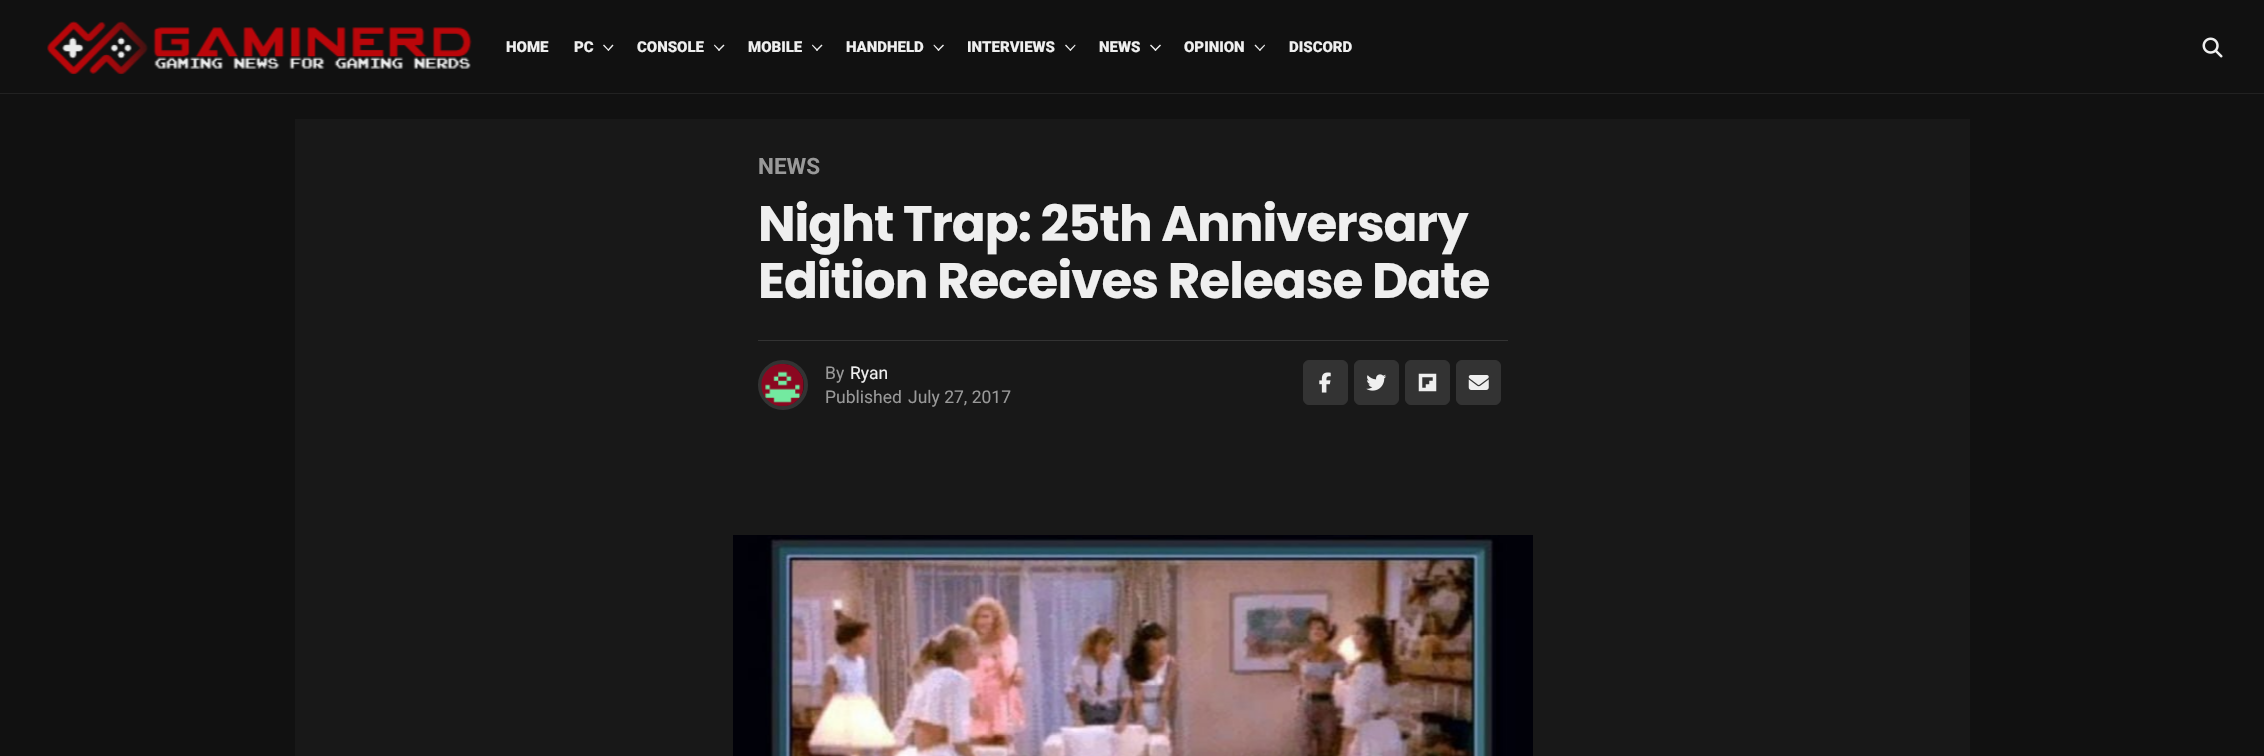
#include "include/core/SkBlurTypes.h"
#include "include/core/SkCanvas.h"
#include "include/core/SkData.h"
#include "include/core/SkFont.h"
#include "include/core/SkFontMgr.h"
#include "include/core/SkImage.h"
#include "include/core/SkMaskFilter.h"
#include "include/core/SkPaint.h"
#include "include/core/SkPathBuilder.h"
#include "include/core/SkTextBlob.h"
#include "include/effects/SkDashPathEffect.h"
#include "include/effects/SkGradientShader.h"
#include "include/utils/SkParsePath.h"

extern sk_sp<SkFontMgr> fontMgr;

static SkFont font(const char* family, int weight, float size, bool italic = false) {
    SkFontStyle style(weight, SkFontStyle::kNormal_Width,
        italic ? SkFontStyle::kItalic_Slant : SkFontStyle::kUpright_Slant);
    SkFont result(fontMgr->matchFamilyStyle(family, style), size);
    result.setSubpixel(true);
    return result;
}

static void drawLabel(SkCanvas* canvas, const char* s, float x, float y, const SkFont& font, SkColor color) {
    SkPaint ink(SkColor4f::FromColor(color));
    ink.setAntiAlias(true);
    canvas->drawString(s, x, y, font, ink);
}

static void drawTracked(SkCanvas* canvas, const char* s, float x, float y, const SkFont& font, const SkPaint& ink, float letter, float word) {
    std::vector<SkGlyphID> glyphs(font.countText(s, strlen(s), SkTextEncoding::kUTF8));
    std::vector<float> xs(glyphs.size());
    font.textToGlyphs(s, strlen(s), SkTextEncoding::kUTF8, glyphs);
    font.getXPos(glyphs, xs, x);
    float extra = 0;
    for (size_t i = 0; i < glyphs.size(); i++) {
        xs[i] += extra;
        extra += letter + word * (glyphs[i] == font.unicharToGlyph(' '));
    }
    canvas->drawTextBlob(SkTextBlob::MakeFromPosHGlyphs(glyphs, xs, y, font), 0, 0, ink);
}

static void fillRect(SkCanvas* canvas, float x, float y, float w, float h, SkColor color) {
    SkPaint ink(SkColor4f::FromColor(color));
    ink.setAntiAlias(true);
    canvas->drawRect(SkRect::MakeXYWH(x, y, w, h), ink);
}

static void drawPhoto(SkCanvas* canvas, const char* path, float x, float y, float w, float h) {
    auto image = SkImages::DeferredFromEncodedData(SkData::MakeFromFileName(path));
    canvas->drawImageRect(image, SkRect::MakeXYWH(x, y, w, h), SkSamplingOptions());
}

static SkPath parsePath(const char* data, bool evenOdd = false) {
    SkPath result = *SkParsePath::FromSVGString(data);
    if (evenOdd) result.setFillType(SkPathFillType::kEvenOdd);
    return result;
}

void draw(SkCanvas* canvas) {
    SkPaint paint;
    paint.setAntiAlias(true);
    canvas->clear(0xFF111111);
    fillRect(canvas, 0, 93, 2264, 1, 0xFF222222);
    drawPhoto(canvas, "assets/img1.png", 47, 21, 425, 54);
    SkFont font1 = font("Roboto", 900, 15);
    drawLabel(canvas, "HOME", 506, 52, font1, 0xFFEFEFEF);
    drawLabel(canvas, "PC", 574, 52, font1, 0xFFEFEFEF);
    paint.setColor(0xFFEFEFEF);
    canvas->drawPath(parsePath("M612.5 44.5L613.5 45.5L608.5 51L607.5 50Z"), paint);
    canvas->drawPath(parsePath("M604 44.5L609 50L608.5 51L603 45.5Z"), paint);
    drawLabel(canvas, "CONSOLE", 637, 52, font1, 0xFFEFEFEF);
    canvas->drawPath(parsePath("M723.5 44.5L724.5 45.5L719 51L718 50Z"), paint);
    canvas->drawPath(parsePath("M714.5 44.5L720 50L719 51L714 45.5Z"), paint);
    drawLabel(canvas, "MOBILE", 748, 52, font1, 0xFFEFEFEF);
    canvas->drawPath(parsePath("M821.5 44.5L822.5 45.5L817 51L816 50Z"), paint);
    canvas->drawPath(parsePath("M812.5 44.5L818 50L817 51L812 45.5Z"), paint);
    drawLabel(canvas, "HANDHELD", 846, 52, font1, 0xFFEFEFEF);
    canvas->drawPath(parsePath("M943 44.5L944 45.5L938.5 51L937.5 50Z"), paint);
    canvas->drawPath(parsePath("M934 44.5L939.5 50L938.5 51L933.5 45.5Z"), paint);
    drawLabel(canvas, "INTERVIEWS", 967, 52, font1, 0xFFEFEFEF);
    canvas->drawPath(parsePath("M1075 44.5L1075.5 45.5L1070.5 51L1069.5 50Z"), paint);
    canvas->drawPath(parsePath("M1066 44.5L1071 50L1070.5 51L1065 45.5Z"), paint);
    drawLabel(canvas, "NEWS", 1099, 52, font1, 0xFFEFEFEF);
    canvas->drawPath(parsePath("M1160 44.5L1161 45.5L1155.5 51L1154.5 50Z"), paint);
    canvas->drawPath(parsePath("M1151 44.5L1156.5 50L1155.5 51L1150 45.5Z"), paint);
    drawLabel(canvas, "OPINION", 1184, 52, font1, 0xFFEFEFEF);
    canvas->drawPath(parsePath("M1264.5 44.5L1265 45.5L1260 51L1259 50Z"), paint);
    canvas->drawPath(parsePath("M1255.5 44.5L1260.5 50L1260 51L1254.5 45.5Z"), paint);
    drawLabel(canvas, "DISCORD", 1289, 52, font1, 0xFFEFEFEF);
    drawPhoto(canvas, "assets/img2.png", 2202, 37, 21, 21);
    fillRect(canvas, 295, 119, 1675, 637, 0xFF181818);
    SkFont font2 = font("Roboto", 700, 22.5f);
    drawLabel(canvas, "NEWS", 758, 174, font2, 0xFF999999);
    SkFont font3 = font("Poppins", 700, 50);
    drawTracked(canvas, "Night Trap: 25th Anniversary", 758, 241, font3, paint, -1, 0);
    drawTracked(canvas, "Edition Receives Release Date", 758, 298, font3, paint, -1, 0);
    fillRect(canvas, 758, 340, 750, 1, 0xFF333333);
    paint.setStroke(true);
    paint.setStrokeWidth(4);
    paint.setColor(0xFF333333);
    canvas->drawCircle(783, 385, 23, paint);
    drawPhoto(canvas, "assets/img3.png", 761, 363, 43, 44);
    SkFont font4 = font("Roboto", 400, 17.5f);
    drawLabel(canvas, "By", 825, 379, font4, 0xFF999999);
    drawLabel(canvas, "Ryan", 850, 379, font4, 0xFFEFEFEF);
    drawLabel(canvas, "Published", 825, 403, font4, 0xFF999999);
    drawLabel(canvas, "July 27, 2017", 908, 403, font4, 0xFF999999);
    paint.setStroke(false);
    canvas->drawRoundRect(SkRect::MakeXYWH(1303.5f, 360.5f, 44, 44), 5.5f, 5.5f, paint);
    paint.setStroke(true);
    paint.setStrokeWidth(1);
    canvas->drawRoundRect(SkRect::MakeXYWH(1303.5f, 360.5f, 44, 44), 5.5f, 5.5f, paint);
    drawPhoto(canvas, "assets/img4.png", 1319, 372, 12, 21);
    paint.setStroke(false);
    canvas->drawRoundRect(SkRect::MakeXYWH(1354.5f, 360.5f, 44, 44), 5.5f, 5.5f, paint);
    paint.setStroke(true);
    canvas->drawRoundRect(SkRect::MakeXYWH(1354.5f, 360.5f, 44, 44), 5.5f, 5.5f, paint);
    drawPhoto(canvas, "assets/img5.png", 1366, 374, 21, 17);
    paint.setStroke(false);
    canvas->drawRoundRect(SkRect::MakeXYWH(1405.5f, 360.5f, 44, 44), 5.5f, 5.5f, paint);
    paint.setStroke(true);
    canvas->drawRoundRect(SkRect::MakeXYWH(1405.5f, 360.5f, 44, 44), 5.5f, 5.5f, paint);
    drawPhoto(canvas, "assets/img6.png", 1418, 373, 19, 19);
    paint.setStroke(false);
    canvas->drawRoundRect(SkRect::MakeXYWH(1456.5f, 360.5f, 44, 44), 5.5f, 5.5f, paint);
    paint.setStroke(true);
    canvas->drawRoundRect(SkRect::MakeXYWH(1456.5f, 360.5f, 44, 44), 5.5f, 5.5f, paint);
    drawPhoto(canvas, "assets/img7.png", 1468, 375, 21, 15);
    drawPhoto(canvas, "assets/img8.png", 733, 535, 800, 221);
}
